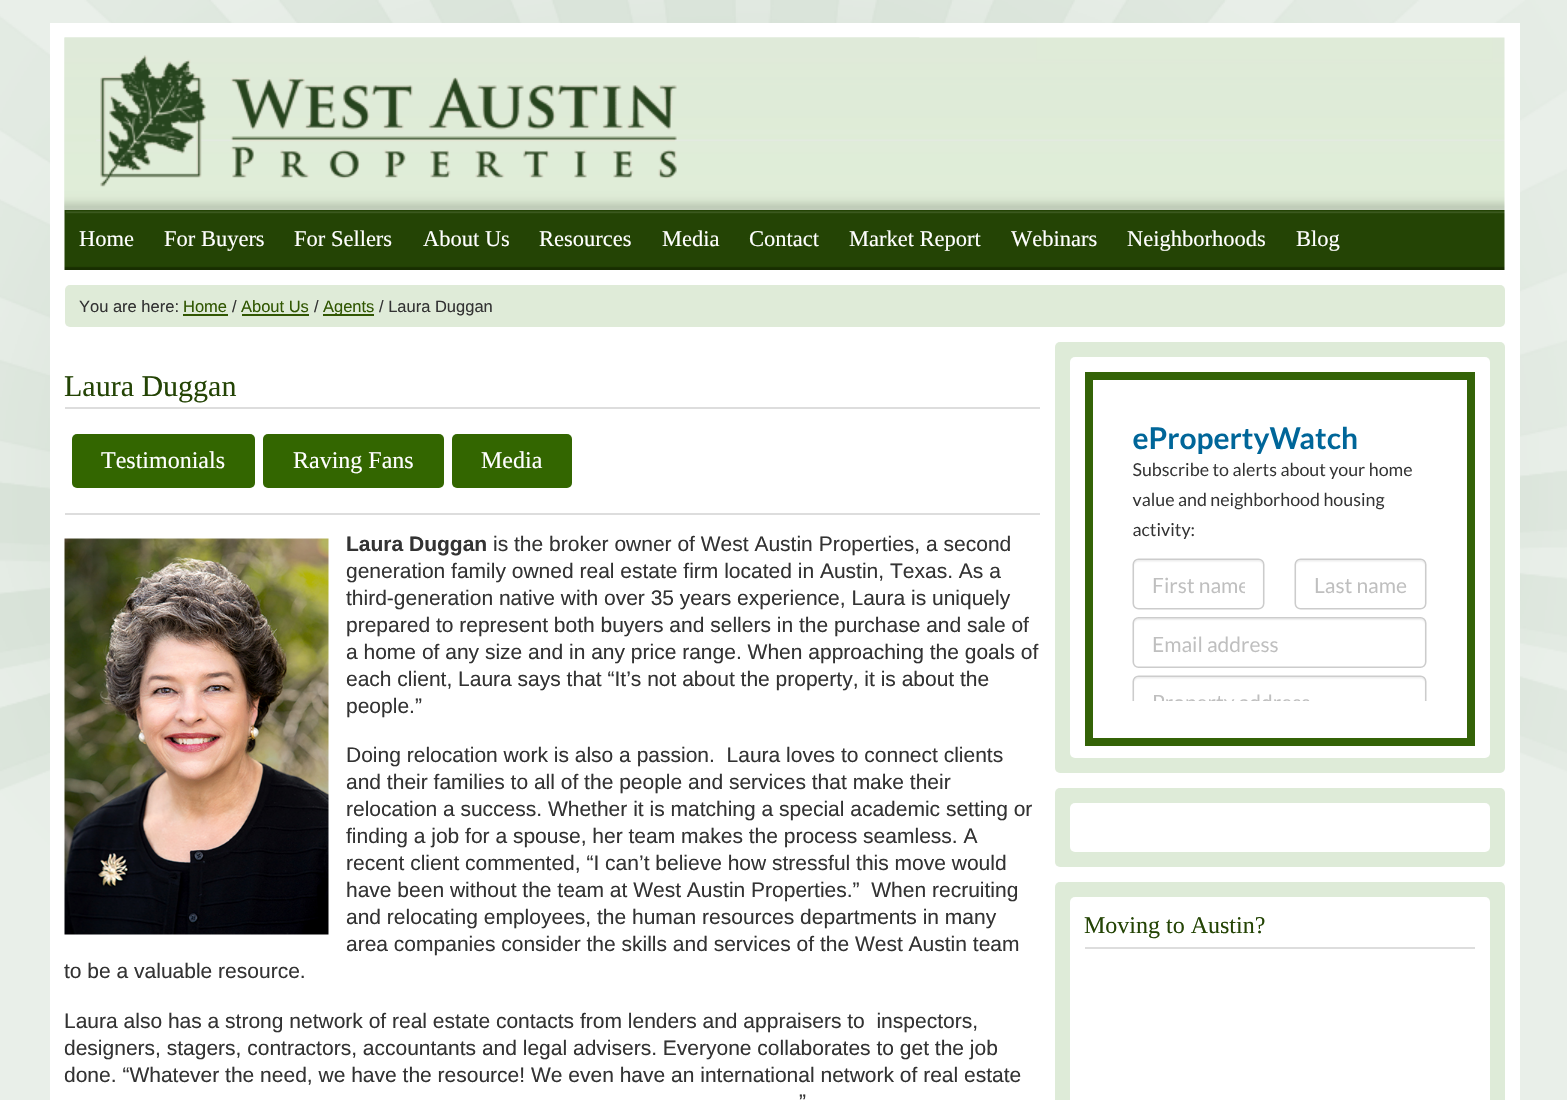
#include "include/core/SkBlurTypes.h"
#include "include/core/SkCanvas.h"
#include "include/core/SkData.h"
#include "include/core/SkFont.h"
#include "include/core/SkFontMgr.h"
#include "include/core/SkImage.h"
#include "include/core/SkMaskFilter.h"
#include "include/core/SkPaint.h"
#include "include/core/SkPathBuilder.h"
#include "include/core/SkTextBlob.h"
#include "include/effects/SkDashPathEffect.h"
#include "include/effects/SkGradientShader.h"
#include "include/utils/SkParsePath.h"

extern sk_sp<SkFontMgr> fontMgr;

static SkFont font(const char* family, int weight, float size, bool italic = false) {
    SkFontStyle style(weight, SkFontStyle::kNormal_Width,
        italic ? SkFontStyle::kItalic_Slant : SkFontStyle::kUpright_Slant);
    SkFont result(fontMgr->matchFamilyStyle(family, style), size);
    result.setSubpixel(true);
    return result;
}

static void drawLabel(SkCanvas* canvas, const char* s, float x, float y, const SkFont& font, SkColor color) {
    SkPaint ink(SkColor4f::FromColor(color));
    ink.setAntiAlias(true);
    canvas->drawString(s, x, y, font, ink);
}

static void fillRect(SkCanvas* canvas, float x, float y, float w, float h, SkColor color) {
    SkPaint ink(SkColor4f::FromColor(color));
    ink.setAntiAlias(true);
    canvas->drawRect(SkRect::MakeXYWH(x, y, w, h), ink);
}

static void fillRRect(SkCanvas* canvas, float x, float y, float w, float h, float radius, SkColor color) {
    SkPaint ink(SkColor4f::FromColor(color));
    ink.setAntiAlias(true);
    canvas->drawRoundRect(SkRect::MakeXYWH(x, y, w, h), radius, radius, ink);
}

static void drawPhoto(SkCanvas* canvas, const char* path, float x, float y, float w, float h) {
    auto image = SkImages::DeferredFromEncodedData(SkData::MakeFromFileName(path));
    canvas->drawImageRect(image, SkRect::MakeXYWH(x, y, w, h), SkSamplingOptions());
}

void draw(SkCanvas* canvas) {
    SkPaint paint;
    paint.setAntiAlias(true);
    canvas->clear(0xFFE9EFE9);
    drawPhoto(canvas, "assets/img1.png", 0, 0, 1567, 988);
    fillRect(canvas, 50, 23, 1470, 1077, 0xFFFFFFFF);
    drawPhoto(canvas, "assets/img2.png", 64, 37, 1441, 173);
    drawPhoto(canvas, "assets/img3.png", 64, 37, 856, 173);
    drawPhoto(canvas, "assets/img4.png", 64, 210, 1441, 60);
    SkFont font1 = font("Liberation Serif", 400, 22.5f);
    drawLabel(canvas, "Home", 79, 246, font1, 0xFFFFFFFF);
    drawLabel(canvas, "For Buyers", 164, 246, font1, 0xFFFFFFFF);
    drawLabel(canvas, "For Sellers", 294, 246, font1, 0xFFFFFFFF);
    drawLabel(canvas, "About Us", 423, 246, font1, 0xFFFFFFFF);
    drawLabel(canvas, "Resources", 539, 246, font1, 0xFFFFFFFF);
    drawLabel(canvas, "Media", 662, 246, font1, 0xFFFFFFFF);
    drawLabel(canvas, "Contact", 749, 246, font1, 0xFFFFFFFF);
    drawLabel(canvas, "Market Report", 849, 246, font1, 0xFFFFFFFF);
    drawLabel(canvas, "Webinars", 1011, 246, font1, 0xFFFFFFFF);
    drawLabel(canvas, "Neighborhoods", 1127, 246, font1, 0xFFFFFFFF);
    drawLabel(canvas, "Blog", 1296, 246, font1, 0xFFFFFFFF);
    fillRRect(canvas, 65, 285, 1440, 42, 5, 0xFFDFEBD8);
    SkFont font2 = font("Liberation Sans", 400, 16.5f);
    drawLabel(canvas, "You are here:", 79, 312, font2, 0xFF333333);
    drawLabel(canvas, "Home", 183, 312, font2, 0xFF315702);
    fillRect(canvas, 183, 314, 45, 2, 0xFF315702);
    drawLabel(canvas, "/", 232, 312, font2, 0xFF333333);
    drawLabel(canvas, "About Us", 241, 312, font2, 0xFF315702);
    fillRect(canvas, 242, 314, 67, 2, 0xFF315702);
    drawLabel(canvas, "/", 314, 312, font2, 0xFF333333);
    fillRect(canvas, 323, 314, 51, 2, 0xFF315702);
    drawLabel(canvas, "Agents", 323, 312, font2, 0xFF315702);
    drawLabel(canvas, "/ Laura Duggan", 379, 312, font2, 0xFF333333);
    fillRect(canvas, 65, 407, 975, 2, 0xFFDDDDDD);
    SkFont font3 = font("Liberation Serif", 400, 30);
    drawLabel(canvas, "Laura Duggan", 64, 396, font3, 0xFF244405);
    fillRRect(canvas, 72, 434, 183, 54, 5, 0xFF336600);
    SkFont font4 = font("Liberation Serif", 400, 24);
    drawLabel(canvas, "Testimonials", 101, 468, font4, 0xFFFFFFFF);
    fillRRect(canvas, 263, 434, 181, 54, 5, 0xFF336600);
    drawLabel(canvas, "Raving Fans", 293, 468, font4, 0xFFFFFFFF);
    fillRRect(canvas, 452, 434, 120, 54, 5, 0xFF336600);
    drawLabel(canvas, "Media", 481, 468, font4, 0xFFFFFFFF);
    fillRect(canvas, 65, 513, 975, 2, 0xFFDDDDDD);
    drawPhoto(canvas, "assets/img5.png", 64, 538, 265, 397);
    SkFont font5 = font("Liberation Sans", 700, 21);
    drawLabel(canvas, "Laura Duggan", 346, 551, font5, 0xFF333333);
    SkFont font6 = font("Liberation Sans", 400, 21);
    drawLabel(canvas, "is the broker owner of West Austin Properties, a second", 493, 551, font6, 0xFF333333);
    drawLabel(canvas, "generation family owned real estate firm located in Austin, Texas. As a", 346, 578, font6, 0xFF333333);
    drawLabel(canvas, "third-generation native with over 35 years experience, Laura is uniquely", 346, 605, font6, 0xFF333333);
    drawLabel(canvas, "prepared to represent both buyers and sellers in the purchase and sale of", 346, 632, font6, 0xFF333333);
    drawLabel(canvas, "a home of any size and in any price range. When approaching the goals of", 346, 659, font6, 0xFF333333);
    drawLabel(canvas, "each client, Laura says that “It’s not about the property, it is about the", 346, 686, font6, 0xFF333333);
    drawLabel(canvas, "people.”", 346, 713, font6, 0xFF333333);
    drawLabel(canvas, "Doing relocation work is also a passion.  Laura loves to connect clients", 346, 762, font6, 0xFF333333);
    drawLabel(canvas, "and their families to all of the people and services that make their", 346, 789, font6, 0xFF333333);
    drawLabel(canvas, "relocation a success. Whether it is matching a special academic setting or", 346, 816, font6, 0xFF333333);
    drawLabel(canvas, "finding a job for a spouse, her team makes the process seamless. A", 346, 843, font6, 0xFF333333);
    drawLabel(canvas, "recent client commented, “I can’t believe how stressful this move would", 346, 870, font6, 0xFF333333);
    drawLabel(canvas, "have been without the team at West Austin Properties.”  When recruiting", 346, 897, font6, 0xFF333333);
    drawLabel(canvas, "and relocating employees, the human resources departments in many", 346, 924, font6, 0xFF333333);
    drawLabel(canvas, "area companies consider the skills and services of the West Austin team", 346, 951, font6, 0xFF333333);
    drawLabel(canvas, "to be a valuable resource.", 64, 978, font6, 0xFF333333);
    drawLabel(canvas, "Laura also has a strong network of real estate contacts from lenders and appraisers to  inspectors,", 64, 1028, font6, 0xFF333333);
    drawLabel(canvas, "designers, stagers, contractors, accountants and legal advisers. Everyone collaborates to get the job", 64, 1055, font6, 0xFF333333);
    drawLabel(canvas, "done. “Whatever the need, we have the resource! We even have an international network of real estate", 64, 1082, font6, 0xFF333333);
    drawLabel(canvas, "”", 799, 1109, font6, 0xFF333333);
    fillRRect(canvas, 1055, 342, 450, 431, 5, 0xFFDEEBD8);
    fillRRect(canvas, 1070, 357, 420, 401, 5, 0xFFFFFFFF);
    paint.setStroke(true);
    paint.setStrokeWidth(8);
    paint.setColor(0xFF346307);
    canvas->drawRect(SkRect::MakeXYWH(1089, 376, 382, 366), paint);
    drawPhoto(canvas, "assets/img6.png", 1132, 426, 295, 275);
    fillRRect(canvas, 1055, 788, 450, 79, 5, 0xFFDEEBD8);
    fillRRect(canvas, 1070, 803, 420, 49, 5, 0xFFFFFFFF);
    fillRRect(canvas, 1055, 882, 450, 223, 5, 0xFFDEEBD8);
    fillRRect(canvas, 1070, 897, 420, 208, 5, 0xFFFFFFFF);
    fillRect(canvas, 1085, 947, 390, 2, 0xFFDDDDDD);
    drawLabel(canvas, "Moving to Austin?", 1084, 933, font4, 0xFF244405);
}
